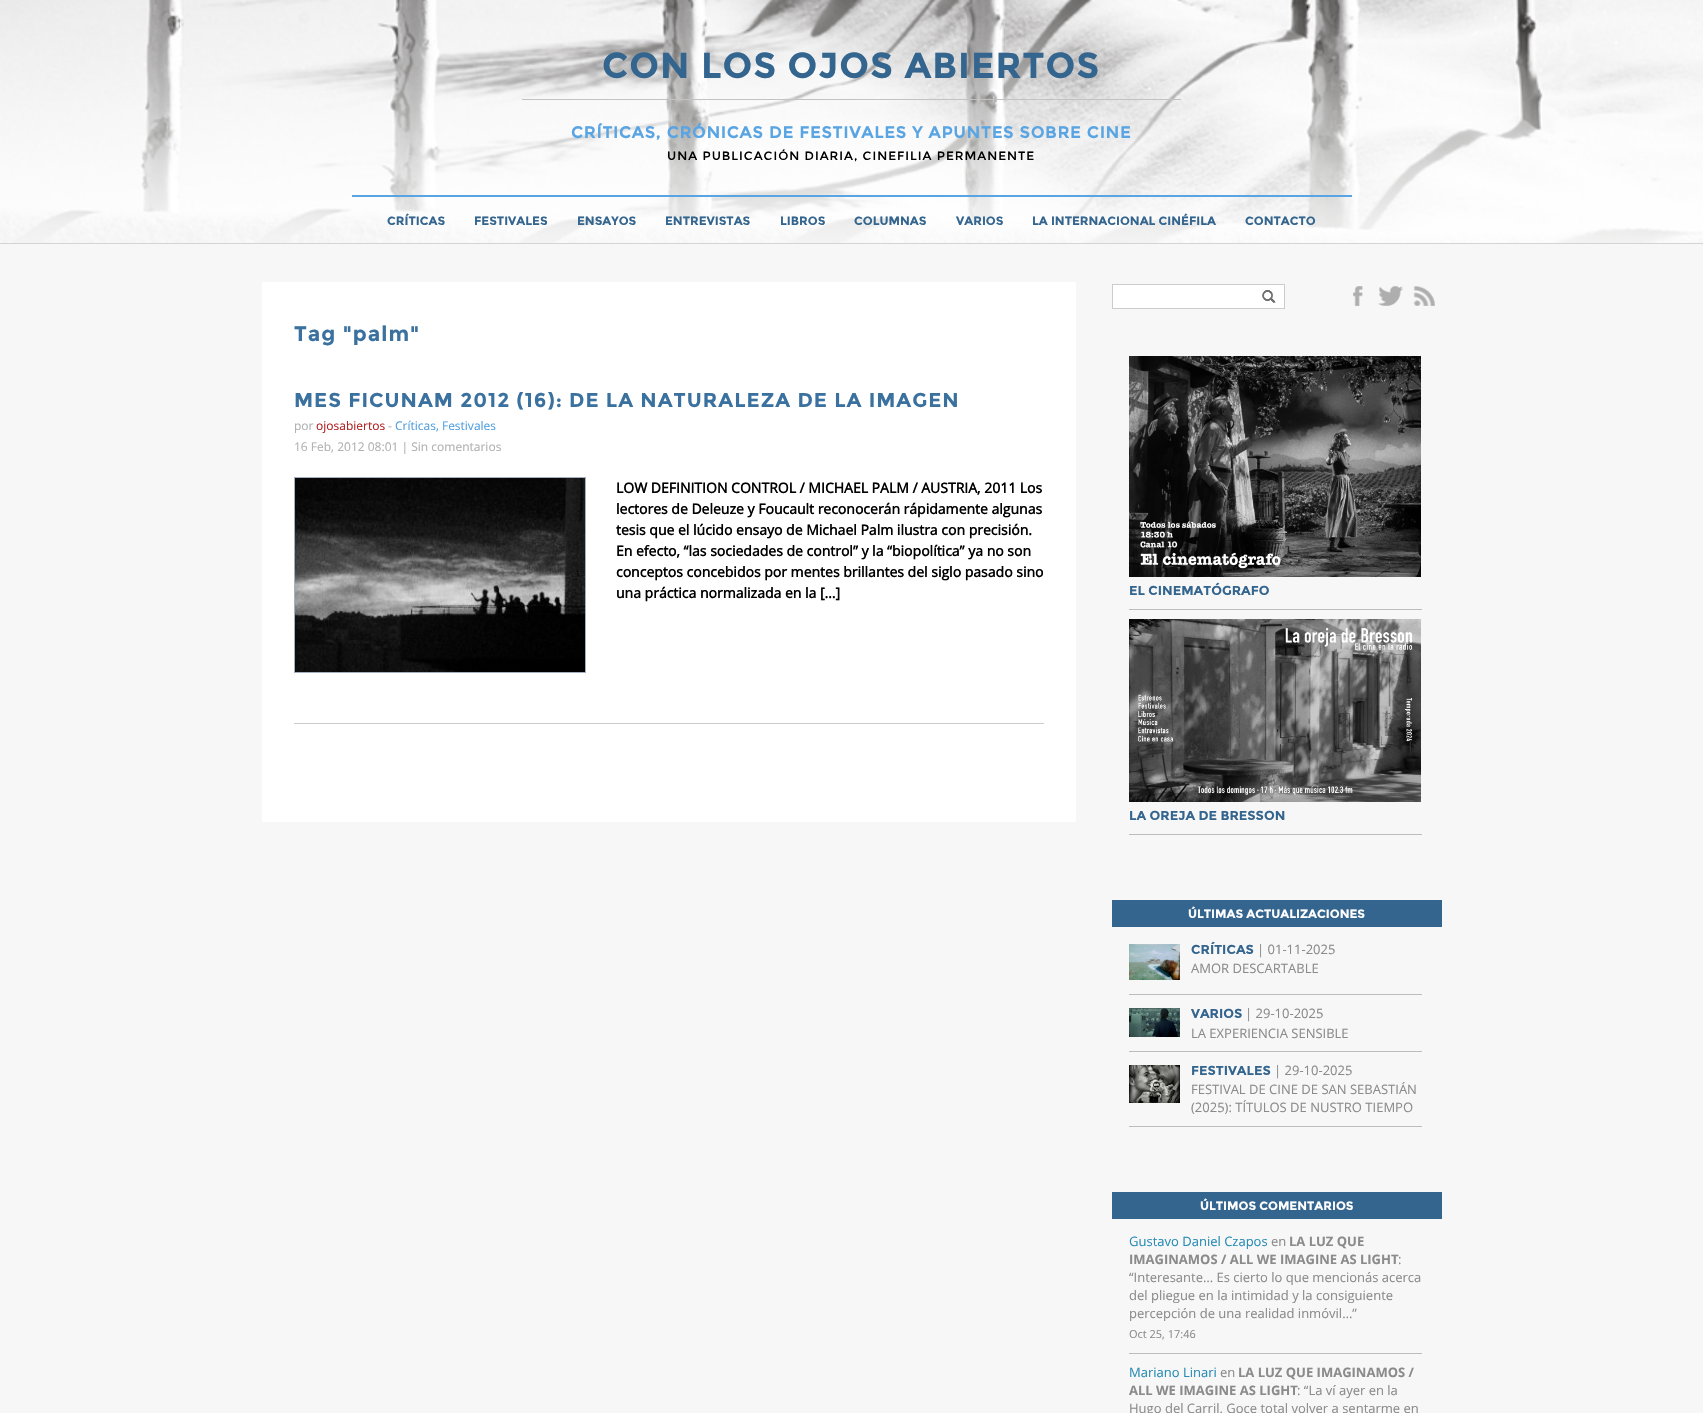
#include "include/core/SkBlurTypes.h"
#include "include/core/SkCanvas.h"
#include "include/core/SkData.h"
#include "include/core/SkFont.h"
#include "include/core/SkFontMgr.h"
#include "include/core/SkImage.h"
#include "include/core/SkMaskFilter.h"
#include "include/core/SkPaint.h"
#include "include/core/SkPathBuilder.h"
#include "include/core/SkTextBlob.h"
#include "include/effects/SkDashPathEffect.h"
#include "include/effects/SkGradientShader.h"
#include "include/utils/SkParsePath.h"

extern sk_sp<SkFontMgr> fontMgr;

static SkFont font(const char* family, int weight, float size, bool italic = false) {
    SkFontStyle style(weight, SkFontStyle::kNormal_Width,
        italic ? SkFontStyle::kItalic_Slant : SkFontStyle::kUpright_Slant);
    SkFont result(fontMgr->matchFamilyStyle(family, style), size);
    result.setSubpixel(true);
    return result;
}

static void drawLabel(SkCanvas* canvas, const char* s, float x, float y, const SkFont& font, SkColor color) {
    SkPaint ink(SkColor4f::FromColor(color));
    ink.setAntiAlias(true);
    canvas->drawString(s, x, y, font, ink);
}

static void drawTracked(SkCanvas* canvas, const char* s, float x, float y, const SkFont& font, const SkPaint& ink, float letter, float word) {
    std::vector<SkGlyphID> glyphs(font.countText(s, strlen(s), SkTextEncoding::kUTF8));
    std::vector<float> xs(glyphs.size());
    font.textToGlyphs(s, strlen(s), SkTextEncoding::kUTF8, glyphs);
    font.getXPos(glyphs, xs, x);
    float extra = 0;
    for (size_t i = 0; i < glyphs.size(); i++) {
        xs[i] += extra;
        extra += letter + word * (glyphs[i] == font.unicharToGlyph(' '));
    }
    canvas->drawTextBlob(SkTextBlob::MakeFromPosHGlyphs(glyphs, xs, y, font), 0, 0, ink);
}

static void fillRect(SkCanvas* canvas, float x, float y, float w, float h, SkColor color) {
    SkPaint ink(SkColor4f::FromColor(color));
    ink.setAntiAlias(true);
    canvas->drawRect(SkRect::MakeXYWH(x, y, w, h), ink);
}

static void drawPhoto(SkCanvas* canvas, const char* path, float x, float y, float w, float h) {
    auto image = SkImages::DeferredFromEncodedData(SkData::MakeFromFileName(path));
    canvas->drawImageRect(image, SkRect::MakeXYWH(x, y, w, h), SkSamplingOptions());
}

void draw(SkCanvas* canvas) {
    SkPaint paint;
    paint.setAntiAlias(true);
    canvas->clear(0xFFF7F7F7);
    drawPhoto(canvas, "assets/img1.png", 0, 0, 1703, 243);
    fillRect(canvas, 0, 243, 1703, 1, 0xFFD4D4D4);
    fillRect(canvas, 522, 99, 659, 1, 0xFFC2C2C2);
    SkFont font1 = font("Montserrat", 700, 36);
    paint.setColor(0xFF34658E);
    drawTracked(canvas, "CON LOS OJOS ABIERTOS", 602, 78, font1, paint, 1, 0);
    SkFont font2 = font("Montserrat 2", 700, 16);
    paint.setColor(0xFF59A4E3);
    drawTracked(canvas, "CRÍTICAS, CRÓNICAS DE FESTIVALES Y APUNTES SOBRE CINE", 571, 138, font2, paint, 1, 0);
    SkFont font3 = font("Montserrat", 400, 12);
    paint.setColor(0xFF000000);
    drawTracked(canvas, "UNA PUBLICACIÓN DIARIA, CINEFILIA PERMANENTE", 667, 160, font3, paint, 1, 0);
    fillRect(canvas, 352, 195, 1000, 2, 0xFF59A4E3);
    SkFont font4 = font("Montserrat", 700, 12);
    drawLabel(canvas, "CRÍTICAS", 387, 225, font4, 0xFF34658E);
    drawLabel(canvas, "FESTIVALES", 474, 225, font4, 0xFF34658E);
    drawLabel(canvas, "ENSAYOS", 577, 225, font4, 0xFF34658E);
    drawLabel(canvas, "ENTREVISTAS", 665, 225, font4, 0xFF34658E);
    drawLabel(canvas, "LIBROS", 780, 225, font4, 0xFF34658E);
    drawLabel(canvas, "COLUMNAS", 854, 225, font4, 0xFF34658E);
    drawLabel(canvas, "VARIOS", 956, 225, font4, 0xFF34658E);
    drawLabel(canvas, "LA INTERNACIONAL CINÉFILA", 1032, 225, font4, 0xFF34658E);
    drawLabel(canvas, "CONTACTO", 1245, 225, font4, 0xFF34658E);
    fillRect(canvas, 262, 282, 814, 540, 0xFFFFFFFF);
    SkFont font5 = font("Montserrat", 700, 21);
    paint.setColor(0xFF3B719F);
    drawTracked(canvas, "Tag \"palm\"", 294, 341, font5, paint, 1, 0);
    fillRect(canvas, 294, 723, 750, 1, 0xFFCCCCCC);
    SkFont font6 = font("Montserrat", 700, 20);
    drawTracked(canvas, "MES FICUNAM 2012 (16): DE LA NATURALEZA DE LA IMAGEN", 294, 407, font6, paint, 1, 0);
    SkFont font7 = font("Open Sans", 400, 12);
    drawLabel(canvas, "por", 294, 430, font7, 0xFFB0B0B0);
    drawLabel(canvas, "ojosabiertos", 316, 430, font7, 0xFFAF2022);
    drawLabel(canvas, "-", 388, 430, font7, 0xFFB0B0B0);
    drawLabel(canvas, "Críticas, Festivales", 395, 430, font7, 0xFF519FDF);
    drawLabel(canvas, "16 Feb, 2012 08:01 | Sin comentarios", 294, 451, font7, 0xFFB0B0B0);
    paint.setStroke(true);
    paint.setStrokeWidth(1);
    paint.setColor(0xFFA4B0C1);
    canvas->drawRect(SkRect::MakeXYWH(294.5f, 477.5f, 291, 195), paint);
    drawPhoto(canvas, "assets/img2.png", 295, 478, 290, 194);
    SkFont font8 = font("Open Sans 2", 700, 14);
    drawLabel(canvas, "LOW DEFINITION CONTROL / MICHAEL PALM / AUSTRIA, 2011 Los", 616, 493, font8, 0xFF000000);
    drawLabel(canvas, "lectores de Deleuze y Foucault reconocerán rápidamente algunas", 616, 514, font8, 0xFF000000);
    drawLabel(canvas, "tesis que el lúcido ensayo de Michael Palm ilustra con precisión.", 616, 535, font8, 0xFF000000);
    drawLabel(canvas, "En efecto, “las sociedades de control” y la “biopolítica” ya no son", 616, 556, font8, 0xFF000000);
    drawLabel(canvas, "conceptos concebidos por mentes brillantes del siglo pasado sino", 616, 577, font8, 0xFF000000);
    drawLabel(canvas, "una práctica normalizada en la […]", 616, 598, font8, 0xFF000000);
    paint.setStroke(false);
    paint.setColor(0xFFFFFFFF);
    canvas->drawRect(SkRect::MakeXYWH(1112.5f, 284.5f, 172, 24), paint);
    paint.setStroke(true);
    paint.setColor(0xFFCCCCCC);
    canvas->drawRect(SkRect::MakeXYWH(1112.5f, 284.5f, 172, 24), paint);
    drawPhoto(canvas, "assets/img3.png", 1262, 290, 14, 13);
    drawPhoto(canvas, "assets/img4.png", 1353, 286, 10, 20);
    drawPhoto(canvas, "assets/img5.png", 1378, 286, 25, 20);
    drawPhoto(canvas, "assets/img6.png", 1413, 286, 22, 20);
    fillRect(canvas, 1129, 609, 293, 1, 0xFFBCBCBC);
    drawPhoto(canvas, "assets/img7.png", 1129, 356, 292, 221);
    SkFont font9 = font("Montserrat", 700, 13);
    drawLabel(canvas, "EL CINEMATÓGRAFO", 1129, 595, font9, 0xFF34658E);
    fillRect(canvas, 1129, 834, 293, 1, 0xFFBCBCBC);
    drawPhoto(canvas, "assets/img8.png", 1129, 619, 292, 183);
    drawLabel(canvas, "LA OREJA DE BRESSON", 1129, 820, font9, 0xFF34658E);
    fillRect(canvas, 1112, 900, 330, 27, 0xFF34658E);
    drawLabel(canvas, "ÚLTIMAS ACTUALIZACIONES", 1188, 918, font4, 0xFFFFFFFF);
    fillRect(canvas, 1129, 994, 293, 1, 0xFFBCBCBC);
    drawPhoto(canvas, "assets/img9.png", 1129, 944, 51, 36);
    drawLabel(canvas, "CRÍTICAS", 1191, 954, font9, 0xFF34658E);
    SkFont font10 = font("Open Sans", 400, 13);
    drawLabel(canvas, "| 01-11-2025", 1257, 954, font10, 0xFF8B8B8B);
    drawLabel(canvas, "AMOR DESCARTABLE", 1191, 973, font10, 0xFF8B8B8B);
    fillRect(canvas, 1129, 1051, 293, 1, 0xFFBCBCBC);
    drawPhoto(canvas, "assets/img10.png", 1129, 1008, 51, 29);
    drawLabel(canvas, "VARIOS", 1191, 1018, font9, 0xFF34658E);
    drawLabel(canvas, "| 29-10-2025", 1245, 1018, font10, 0xFF8B8B8B);
    drawLabel(canvas, "LA EXPERIENCIA SENSIBLE", 1191, 1038, font10, 0xFF8B8B8B);
    fillRect(canvas, 1129, 1126, 293, 1, 0xFFBCBCBC);
    drawPhoto(canvas, "assets/img11.png", 1129, 1065, 51, 38);
    drawLabel(canvas, "FESTIVALES", 1191, 1075, font9, 0xFF34658E);
    drawLabel(canvas, "| 29-10-2025", 1274, 1075, font10, 0xFF8B8B8B);
    drawLabel(canvas, "FESTIVAL DE CINE DE SAN SEBASTIÁN", 1191, 1094, font10, 0xFF8B8B8B);
    drawLabel(canvas, "(2025): TÍTULOS DE NUSTRO TIEMPO", 1191, 1112, font10, 0xFF8B8B8B);
    fillRect(canvas, 1112, 1192, 330, 27, 0xFF34658E);
    drawLabel(canvas, "ÚLTIMOS COMENTARIOS", 1200, 1210, font4, 0xFFFFFFFF);
    fillRect(canvas, 1129, 1353, 293, 1, 0xFFBCBCBC);
    drawLabel(canvas, "Gustavo Daniel Czapos", 1129, 1246, font10, 0xFF288CB5);
    drawLabel(canvas, "en", 1271, 1246, font10, 0xFF8B8B8B);
    SkFont font11 = font("Open Sans", 700, 13);
    drawLabel(canvas, "LA LUZ QUE", 1289, 1246, font11, 0xFF8B8B8B);
    drawLabel(canvas, "IMAGINAMOS / ALL WE IMAGINE AS LIGHT", 1129, 1264, font11, 0xFF8B8B8B);
    drawLabel(canvas, ":", 1398, 1264, font10, 0xFF8B8B8B);
    drawLabel(canvas, "“Interesante… Es cierto lo que mencionás acerca", 1129, 1282, font10, 0xFF8B8B8B);
    drawLabel(canvas, "del pliegue en la intimidad y la consiguiente", 1129, 1300, font10, 0xFF8B8B8B);
    drawLabel(canvas, "percepción de una realidad inmóvil…”", 1129, 1318, font10, 0xFF8B8B8B);
    SkFont font12 = font("Open Sans", 400, 11);
    drawLabel(canvas, "Oct 25, 17:46", 1129, 1338, font12, 0xFF8B8B8B);
    drawLabel(canvas, "Mariano Linari", 1129, 1377, font10, 0xFF288CB5);
    drawLabel(canvas, "en", 1220, 1377, font10, 0xFF8B8B8B);
    drawLabel(canvas, "LA LUZ QUE IMAGINAMOS /", 1238, 1377, font11, 0xFF8B8B8B);
    drawLabel(canvas, "ALL WE IMAGINE AS LIGHT", 1129, 1395, font11, 0xFF8B8B8B);
    drawLabel(canvas, ": “La ví ayer en la", 1297, 1395, font10, 0xFF8B8B8B);
    drawLabel(canvas, "Hugo del Carril. Goce total volver a sentarme en", 1129, 1413, font10, 0xFF8B8B8B);
}
